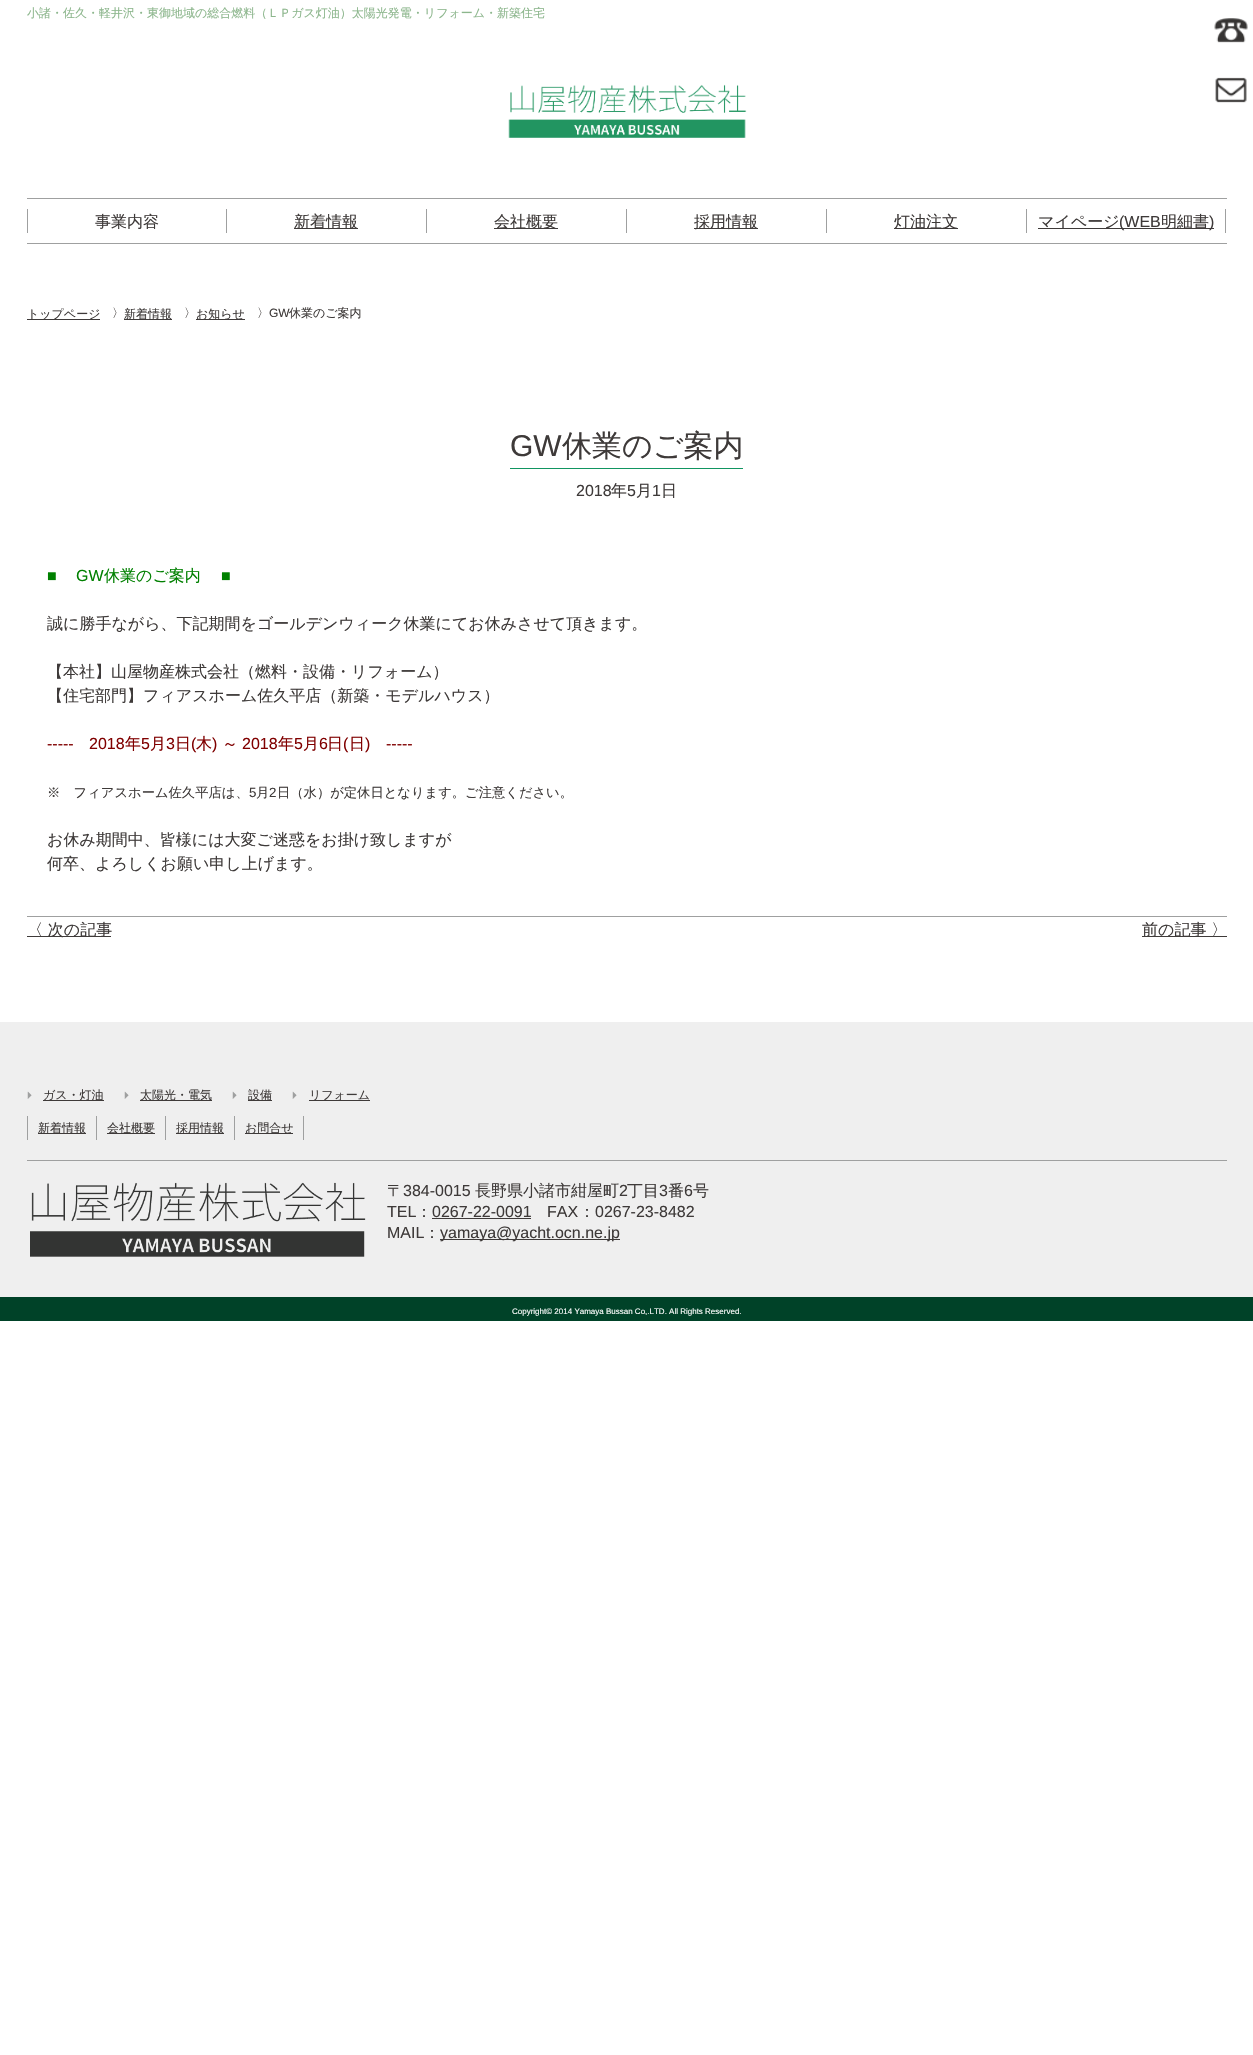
#include "include/core/SkBlurTypes.h"
#include "include/core/SkCanvas.h"
#include "include/core/SkData.h"
#include "include/core/SkFont.h"
#include "include/core/SkFontMgr.h"
#include "include/core/SkImage.h"
#include "include/core/SkMaskFilter.h"
#include "include/core/SkPaint.h"
#include "include/core/SkPathBuilder.h"
#include "include/core/SkTextBlob.h"
#include "include/effects/SkDashPathEffect.h"
#include "include/effects/SkGradientShader.h"
#include "include/utils/SkParsePath.h"

extern sk_sp<SkFontMgr> fontMgr;

static SkFont font(const char* family, int weight, float size, bool italic = false) {
    SkFontStyle style(weight, SkFontStyle::kNormal_Width,
        italic ? SkFontStyle::kItalic_Slant : SkFontStyle::kUpright_Slant);
    SkFont result(fontMgr->matchFamilyStyle(family, style), size);
    result.setSubpixel(true);
    return result;
}

static void drawLabel(SkCanvas* canvas, const char* s, float x, float y, const SkFont& font, SkColor color) {
    SkPaint ink(SkColor4f::FromColor(color));
    ink.setAntiAlias(true);
    canvas->drawString(s, x, y, font, ink);
}

static void fillRect(SkCanvas* canvas, float x, float y, float w, float h, SkColor color) {
    SkPaint ink(SkColor4f::FromColor(color));
    ink.setAntiAlias(true);
    canvas->drawRect(SkRect::MakeXYWH(x, y, w, h), ink);
}

static void drawPhoto(SkCanvas* canvas, const char* path, float x, float y, float w, float h) {
    auto image = SkImages::DeferredFromEncodedData(SkData::MakeFromFileName(path));
    canvas->drawImageRect(image, SkRect::MakeXYWH(x, y, w, h), SkSamplingOptions());
}

void draw(SkCanvas* canvas) {
    SkPaint paint;
    paint.setAntiAlias(true);
    canvas->clear(0xFFFFFFFF);
    SkFont font1 = font("WenQuanYi Zen Hei", 500, 12);
    drawLabel(canvas, "小諸・佐久・軽井沢・東御地域の総合燃料（ＬＰガス灯油）太陽光発電・リフォーム・新築住宅", 27, 17, font1, 0xFF8CB68C);
    drawPhoto(canvas, "assets/img1.png", 1214, 18, 34, 25);
    drawPhoto(canvas, "assets/img2.png", 1215, 77, 32, 26);
    drawPhoto(canvas, "assets/img3.png", 508, 84, 239, 54);
    fillRect(canvas, 27, 198, 1200, 1, 0xFF9FA0A0);
    fillRect(canvas, 27, 243, 1200, 1, 0xFF9FA0A0);
    fillRect(canvas, 226, 209, 1, 24, 0xFF9FA0A0);
    fillRect(canvas, 27, 209, 1, 24, 0xFF9FA0A0);
    SkFont font2 = font("WenQuanYi Zen Hei", 500, 16);
    drawLabel(canvas, "事業内容", 95, 227, font2, 0xFF3E3A39);
    fillRect(canvas, 426, 209, 1, 24, 0xFF9FA0A0);
    fillRect(canvas, 294, 228, 64, 1, 0xFF3E3A39);
    drawLabel(canvas, "新着情報", 294, 227, font2, 0xFF3E3A39);
    fillRect(canvas, 626, 209, 1, 24, 0xFF9FA0A0);
    fillRect(canvas, 494, 228, 64, 1, 0xFF3E3A39);
    drawLabel(canvas, "会社概要", 494, 227, font2, 0xFF3E3A39);
    fillRect(canvas, 826, 209, 1, 24, 0xFF9FA0A0);
    fillRect(canvas, 694, 228, 64, 1, 0xFF3E3A39);
    drawLabel(canvas, "採用情報", 694, 227, font2, 0xFF3E3A39);
    fillRect(canvas, 1026, 209, 1, 24, 0xFF9FA0A0);
    fillRect(canvas, 894, 228, 64, 1, 0xFF3E3A39);
    drawLabel(canvas, "灯油注文", 894, 227, font2, 0xFF3E3A39);
    fillRect(canvas, 1225, 209, 1, 24, 0xFF9FA0A0);
    fillRect(canvas, 1038, 228, 176, 1, 0xFF3E3A39);
    drawLabel(canvas, "マイページ", 1038, 227, font2, 0xFF3E3A39);
    SkFont font3 = font("Liberation Sans", 400, 16);
    drawLabel(canvas, "(WEB", 1119, 227, font3, 0xFF3E3A39);
    drawLabel(canvas, "明細書", 1161, 227, font2, 0xFF3E3A39);
    drawLabel(canvas, ")", 1209, 227, font3, 0xFF3E3A39);
    fillRect(canvas, 27, 319, 73, 1, 0xFF3E3A39);
    drawLabel(canvas, "トップページ", 27, 318, font1, 0xFF3E3A39);
    drawLabel(canvas, "〉", 112, 317, font1, 0xFF3E3A39);
    fillRect(canvas, 124, 319, 48, 1, 0xFF3E3A39);
    drawLabel(canvas, "新着情報", 124, 318, font1, 0xFF3E3A39);
    drawLabel(canvas, "〉", 184, 317, font1, 0xFF3E3A39);
    fillRect(canvas, 196, 319, 49, 1, 0xFF3E3A39);
    drawLabel(canvas, "お知らせ", 196, 318, font1, 0xFF3E3A39);
    drawLabel(canvas, "〉", 257, 317, font1, 0xFF3E3A39);
    SkFont font4 = font("Liberation Sans", 400, 12);
    drawLabel(canvas, "GW", 269, 317, font4, 0xFF3E3A39);
    drawLabel(canvas, "休業のご案内", 289, 317, font1, 0xFF3E3A39);
    fillRect(canvas, 510, 468, 233, 1, 0xFF119561);
    SkFont font5 = font("Liberation Sans", 400, 30);
    drawLabel(canvas, "GW", 510, 456, font5, 0xFF3E3A39);
    SkFont font6 = font("WenQuanYi Zen Hei", 500, 30);
    drawLabel(canvas, "休業のご案内", 562, 456, font6, 0xFF3E3A39);
    drawLabel(canvas, "2018", 576, 496, font3, 0xFF3E3A39);
    drawLabel(canvas, "年", 611, 496, font2, 0xFF3E3A39);
    drawLabel(canvas, "5", 627, 496, font3, 0xFF3E3A39);
    drawLabel(canvas, "月", 636, 496, font2, 0xFF3E3A39);
    drawLabel(canvas, "1", 652, 496, font3, 0xFF3E3A39);
    drawLabel(canvas, "日", 661, 496, font2, 0xFF3E3A39);
    drawLabel(canvas, "■", 47, 581, font3, 0xFF008000);
    drawLabel(canvas, "GW", 76, 581, font3, 0xFF008000);
    drawLabel(canvas, "休業のご案内", 104, 581, font2, 0xFF008000);
    drawLabel(canvas, "■", 221, 581, font3, 0xFF008000);
    drawLabel(canvas, "誠に勝手ながら、下記期間をゴールデンウィーク休業にてお休みさせて頂きます。", 47, 629, font2, 0xFF3E3A39);
    drawLabel(canvas, "【本社】山屋物産株式会社（燃料・設備・リフォーム）", 47, 677, font2, 0xFF3E3A39);
    drawLabel(canvas, "【住宅部門】フィアスホーム佐久平店（新築・モデルハウス）", 47, 701, font2, 0xFF3E3A39);
    drawLabel(canvas, "-----", 47, 749, font3, 0xFF800000);
    drawLabel(canvas, "2018", 89, 749, font3, 0xFF800000);
    drawLabel(canvas, "年", 125, 749, font2, 0xFF800000);
    drawLabel(canvas, "5", 141, 749, font3, 0xFF800000);
    drawLabel(canvas, "月", 150, 749, font2, 0xFF800000);
    drawLabel(canvas, "3", 166, 749, font3, 0xFF800000);
    drawLabel(canvas, "日", 175, 749, font2, 0xFF800000);
    drawLabel(canvas, "(", 191, 749, font3, 0xFF800000);
    drawLabel(canvas, "木", 196, 749, font2, 0xFF800000);
    drawLabel(canvas, ")", 212, 749, font3, 0xFF800000);
    drawLabel(canvas, "～", 222, 749, font2, 0xFF800000);
    drawLabel(canvas, "2018", 242, 749, font3, 0xFF800000);
    drawLabel(canvas, "年", 278, 749, font2, 0xFF800000);
    drawLabel(canvas, "5", 294, 749, font3, 0xFF800000);
    drawLabel(canvas, "月", 303, 749, font2, 0xFF800000);
    drawLabel(canvas, "6", 319, 749, font3, 0xFF800000);
    drawLabel(canvas, "日", 327, 749, font2, 0xFF800000);
    drawLabel(canvas, "(", 343, 749, font3, 0xFF800000);
    drawLabel(canvas, "日", 349, 749, font2, 0xFF800000);
    drawLabel(canvas, ")", 365, 749, font3, 0xFF800000);
    drawLabel(canvas, "-----", 386, 749, font3, 0xFF800000);
    SkFont font7 = font("WenQuanYi Zen Hei", 500, 13.3f);
    drawLabel(canvas, "※　フィアスホーム佐久平店は、", 47, 797, font7, 0xFF3E3A39);
    SkFont font8 = font("Liberation Sans", 400, 13.3f);
    drawLabel(canvas, "5", 249, 797, font8, 0xFF3E3A39);
    drawLabel(canvas, "月", 256, 797, font7, 0xFF3E3A39);
    drawLabel(canvas, "2", 269, 797, font8, 0xFF3E3A39);
    drawLabel(canvas, "日（水）が定休日となります。ご注意ください。", 277, 797, font7, 0xFF3E3A39);
    drawLabel(canvas, "お休み期間中、皆様には大変ご迷惑をお掛け致しますが", 47, 845, font2, 0xFF3E3A39);
    drawLabel(canvas, "何卒、よろしくお願い申し上げます。", 47, 869, font2, 0xFF3E3A39);
    fillRect(canvas, 27, 916, 1200, 1, 0xFF9FA0A0);
    fillRect(canvas, 27, 936, 84, 1, 0xFF3E3A39);
    drawLabel(canvas, "〈 次の記事", 27, 935, font2, 0xFF3E3A39);
    fillRect(canvas, 1142, 936, 85, 1, 0xFF3E3A39);
    drawLabel(canvas, "前の記事 〉", 1142, 935, font2, 0xFF3E3A39);
    fillRect(canvas, 0, 1022, 1253, 275, 0xFFEFEFEF);
    drawPhoto(canvas, "assets/img4.png", 27, 1091, 5, 8);
    fillRect(canvas, 43, 1100, 61, 1, 0xFF3E3A39);
    drawLabel(canvas, "ガス・灯油", 43, 1099, font1, 0xFF3E3A39);
    drawPhoto(canvas, "assets/img4.png", 124, 1091, 5, 8);
    fillRect(canvas, 140, 1100, 72, 1, 0xFF3E3A39);
    drawLabel(canvas, "太陽光・電気", 140, 1099, font1, 0xFF3E3A39);
    drawPhoto(canvas, "assets/img4.png", 232, 1091, 5, 8);
    fillRect(canvas, 248, 1100, 24, 1, 0xFF3E3A39);
    drawLabel(canvas, "設備", 248, 1099, font1, 0xFF3E3A39);
    drawPhoto(canvas, "assets/img4.png", 292, 1091, 5, 8);
    fillRect(canvas, 309, 1100, 61, 1, 0xFF3E3A39);
    drawLabel(canvas, "リフォーム", 309, 1099, font1, 0xFF3E3A39);
    fillRect(canvas, 27, 1116, 1, 24, 0xFF9FA0A0);
    fillRect(canvas, 38, 1133, 48, 1, 0xFF3E3A39);
    drawLabel(canvas, "新着情報", 38, 1132, font1, 0xFF3E3A39);
    fillRect(canvas, 96, 1116, 1, 24, 0xFF9FA0A0);
    fillRect(canvas, 107, 1133, 48, 1, 0xFF3E3A39);
    drawLabel(canvas, "会社概要", 107, 1132, font1, 0xFF3E3A39);
    fillRect(canvas, 165, 1116, 1, 24, 0xFF9FA0A0);
    fillRect(canvas, 176, 1133, 48, 1, 0xFF3E3A39);
    drawLabel(canvas, "採用情報", 176, 1132, font1, 0xFF3E3A39);
    fillRect(canvas, 303, 1116, 1, 24, 0xFF9FA0A0);
    fillRect(canvas, 234, 1116, 1, 24, 0xFF9FA0A0);
    fillRect(canvas, 245, 1133, 48, 1, 0xFF3E3A39);
    drawLabel(canvas, "お問合せ", 245, 1132, font1, 0xFF3E3A39);
    fillRect(canvas, 27, 1160, 1200, 1, 0xFF9FA0A0);
    drawPhoto(canvas, "assets/img5.png", 30, 1182, 336, 75);
    drawLabel(canvas, "〒", 387, 1196, font2, 0xFF3E3A39);
    drawLabel(canvas, "384-0015", 403, 1196, font3, 0xFF3E3A39);
    drawLabel(canvas, "長野県小諸市紺屋町", 475, 1196, font2, 0xFF3E3A39);
    drawLabel(canvas, "2", 619, 1196, font3, 0xFF3E3A39);
    drawLabel(canvas, "丁目", 627, 1196, font2, 0xFF3E3A39);
    drawLabel(canvas, "3", 659, 1196, font3, 0xFF3E3A39);
    drawLabel(canvas, "番", 668, 1196, font2, 0xFF3E3A39);
    drawLabel(canvas, "6", 684, 1196, font3, 0xFF3E3A39);
    drawLabel(canvas, "号", 693, 1196, font2, 0xFF3E3A39);
    drawLabel(canvas, "TEL", 387, 1217, font3, 0xFF3E3A39);
    drawLabel(canvas, "：", 416, 1217, font2, 0xFF3E3A39);
    drawLabel(canvas, "0267-22-0091", 432, 1217, font3, 0xFF3E3A39);
    fillRect(canvas, 432, 1218, 99, 1, 0xFF3E3A39);
    drawLabel(canvas, "FAX", 547, 1217, font3, 0xFF3E3A39);
    drawLabel(canvas, "：", 579, 1217, font2, 0xFF3E3A39);
    drawLabel(canvas, "0267-23-8482", 595, 1217, font3, 0xFF3E3A39);
    drawLabel(canvas, "MAIL", 387, 1238, font3, 0xFF3E3A39);
    drawLabel(canvas, "：", 424, 1238, font2, 0xFF3E3A39);
    fillRect(canvas, 440, 1239, 180, 1, 0xFF3E3A39);
    drawLabel(canvas, "yamaya@yacht.ocn.ne.jp", 440, 1238, font3, 0xFF3E3A39);
    fillRect(canvas, 0, 1297, 1253, 24, 0xFF004228);
    SkFont font9 = font("Liberation Sans", 400, 8);
    drawLabel(canvas, "Copyright© 2014 Yamaya Bussan Co,.LTD. All Rights Reserved.", 512, 1314, font9, 0xFFFFFFFF);
}
